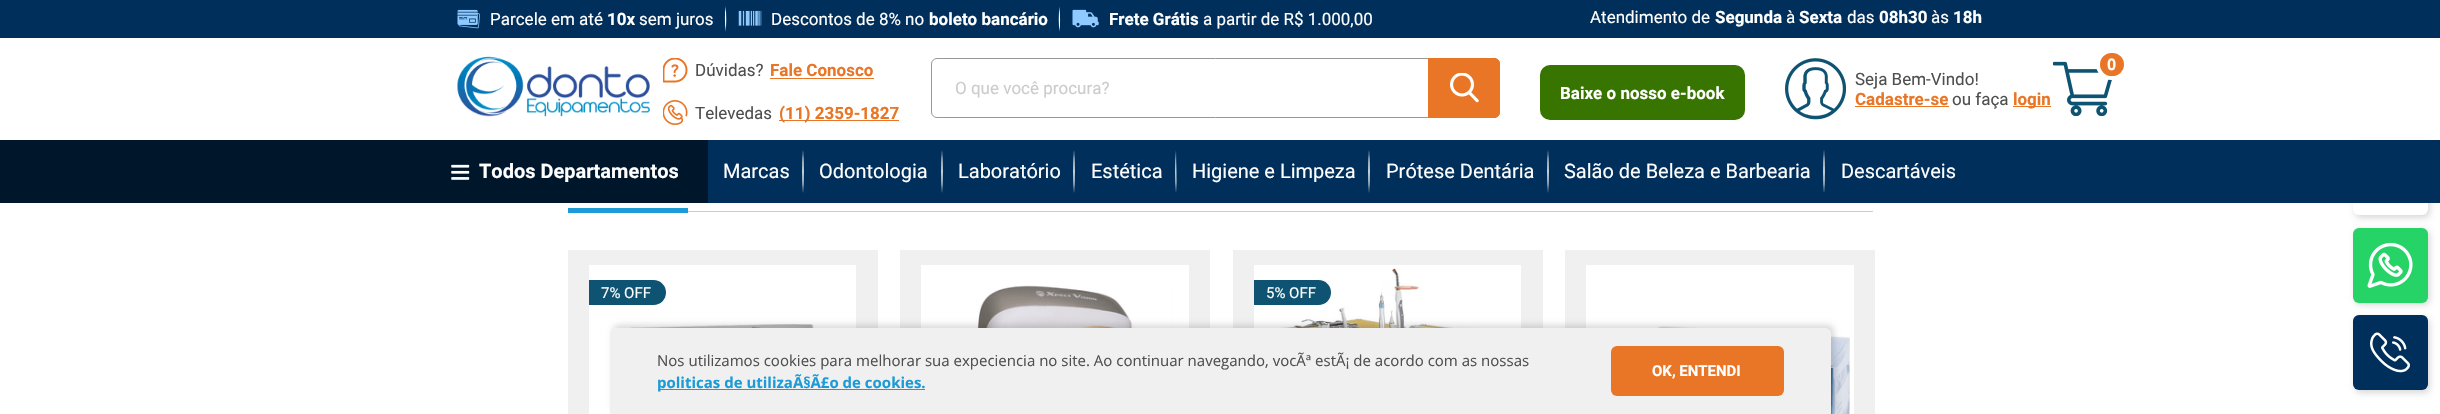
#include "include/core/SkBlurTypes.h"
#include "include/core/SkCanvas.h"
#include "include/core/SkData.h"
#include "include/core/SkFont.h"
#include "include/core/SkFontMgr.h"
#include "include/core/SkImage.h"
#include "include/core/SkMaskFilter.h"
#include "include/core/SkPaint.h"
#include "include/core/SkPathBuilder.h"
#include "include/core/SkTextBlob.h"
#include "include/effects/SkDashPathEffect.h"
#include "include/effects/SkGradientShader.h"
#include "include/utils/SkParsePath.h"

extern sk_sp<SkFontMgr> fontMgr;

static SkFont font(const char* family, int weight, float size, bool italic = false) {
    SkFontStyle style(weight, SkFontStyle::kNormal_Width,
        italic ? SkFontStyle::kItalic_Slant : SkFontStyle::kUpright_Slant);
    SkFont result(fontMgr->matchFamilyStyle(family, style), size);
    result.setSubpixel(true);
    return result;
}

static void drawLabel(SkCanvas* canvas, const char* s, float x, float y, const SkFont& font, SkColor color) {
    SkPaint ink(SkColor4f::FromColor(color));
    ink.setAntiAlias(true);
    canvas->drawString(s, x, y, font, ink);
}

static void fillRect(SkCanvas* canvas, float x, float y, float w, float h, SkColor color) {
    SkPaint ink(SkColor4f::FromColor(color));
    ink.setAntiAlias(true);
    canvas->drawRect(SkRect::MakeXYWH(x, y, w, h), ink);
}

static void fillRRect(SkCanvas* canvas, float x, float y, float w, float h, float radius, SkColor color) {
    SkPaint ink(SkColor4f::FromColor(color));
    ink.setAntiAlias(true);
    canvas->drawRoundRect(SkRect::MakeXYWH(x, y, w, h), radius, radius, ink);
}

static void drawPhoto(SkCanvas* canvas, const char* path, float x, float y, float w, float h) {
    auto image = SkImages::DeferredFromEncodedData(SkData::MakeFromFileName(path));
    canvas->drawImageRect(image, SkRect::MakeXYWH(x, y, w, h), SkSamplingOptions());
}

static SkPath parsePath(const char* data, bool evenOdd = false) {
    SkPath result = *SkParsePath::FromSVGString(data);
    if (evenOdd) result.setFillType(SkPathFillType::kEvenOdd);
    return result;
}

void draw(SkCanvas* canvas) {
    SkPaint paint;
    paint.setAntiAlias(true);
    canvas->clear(0xFFFFFFFF);
    paint.setColor(0x26000000);
    paint.setMaskFilter(SkMaskFilter::MakeBlur(kNormal_SkBlurStyle, 3));
    canvas->drawRoundRect(SkRect::MakeXYWH(2355, 143, 75, 75), 6, 6, paint);
    paint.setMaskFilter(nullptr);
    fillRect(canvas, 2358, 139, 69, 1, 0xFFFFFFFF);
    fillRect(canvas, 0, 0, 2440, 38, 0xFF002F5B);
    drawPhoto(canvas, "assets/img1.png", 457, 9, 23, 20);
    SkFont font1 = font("Roboto", 400, 17);
    drawLabel(canvas, "Parcele em até", 490, 25, font1, 0xFFFFFFFF);
    SkFont font2 = font("Roboto", 700, 17);
    drawLabel(canvas, "10x", 607, 25, font2, 0xFFFFFFFF);
    drawLabel(canvas, "sem juros", 639, 25, font1, 0xFFFFFFFF);
    paint.setColor(0xFFFFFFFF);
    canvas->drawPath(parsePath("M725.5 6.5C726.5 15 726.5 23.5 725.5 31.5C725 23.5 724.5 15 725.5 6.5Z"), paint);
    drawPhoto(canvas, "assets/img2.png", 738, 10, 24, 16);
    drawLabel(canvas, "Descontos de 8% no", 771, 25, font1, 0xFFFFFFFF);
    drawLabel(canvas, "boleto bancário", 929, 25, font2, 0xFFFFFFFF);
    canvas->drawPath(parsePath("M1059.5 6.5C1060 15 1060.5 23.5 1059.5 31.5C1058.5 23.5 1058.5 15 1059.5 6.5Z"), paint);
    drawPhoto(canvas, "assets/img3.png", 1072, 9, 27, 19);
    drawLabel(canvas, "Frete Grátis", 1109, 25, font2, 0xFFFFFFFF);
    drawLabel(canvas, "a partir de R$ 1.000,00", 1203, 25, font1, 0xFFFFFFFF);
    drawLabel(canvas, "Atendimento de", 1590, 23, font1, 0xFFFFFFFF);
    drawLabel(canvas, "Segunda", 1715, 23, font2, 0xFFFFFFFF);
    drawLabel(canvas, "à", 1786, 23, font1, 0xFFFFFFFF);
    drawLabel(canvas, "Sexta", 1799, 23, font2, 0xFFFFFFFF);
    drawLabel(canvas, "das", 1847, 23, font1, 0xFFFFFFFF);
    drawLabel(canvas, "08h30", 1879, 23, font2, 0xFFFFFFFF);
    drawLabel(canvas, "às", 1931, 23, font1, 0xFFFFFFFF);
    drawLabel(canvas, "18h", 1953, 23, font2, 0xFFFFFFFF);
    drawPhoto(canvas, "assets/img4.png", 457, 56, 193, 61);
    drawPhoto(canvas, "assets/img5.png", 663, 58, 25, 25);
    drawLabel(canvas, "Dúvidas?", 695, 76, font1, 0xFF4F4F4F);
    drawLabel(canvas, "Fale Conosco", 770, 76, font2, 0xFFE97626);
    fillRect(canvas, 770, 78, 104, 1, 0xFFE97626);
    drawPhoto(canvas, "assets/img6.png", 663, 100, 25, 25);
    drawLabel(canvas, "Televedas", 695, 119, font1, 0xFF4F4F4F);
    fillRect(canvas, 779, 120, 120, 1, 0xFFE97626);
    drawLabel(canvas, "(11) 2359-1827", 779, 119, font2, 0xFFE97626);
    paint.setStroke(true);
    paint.setStrokeWidth(1);
    paint.setColor(0xFF989898);
    canvas->drawRoundRect(SkRect::MakeXYWH(931.5f, 58.5f, 568, 59), 5.5f, 5.5f, paint);
    drawLabel(canvas, "O que você procura?", 955, 94, font1, 0xFFCCCCCC);
    paint.setStroke(false);
    paint.setColor(0xFFE97626);
    canvas->drawPath(parsePath("M1428 58H1494C1497.5 58 1500 60.5 1500 64V112C1500 115.5 1497.5 118 1494 118H1428Z"), paint);
    drawPhoto(canvas, "assets/img7.png", 1450, 73, 29, 30);
    fillRRect(canvas, 1540, 65, 205, 55, 10, 0xFF387500);
    drawLabel(canvas, "Baixe o nosso e-book", 1560, 99, font2, 0xFFFFFFFF);
    drawPhoto(canvas, "assets/img8.png", 1785, 58, 61, 62);
    drawLabel(canvas, "Seja Bem-Vindo!", 1855, 85, font1, 0xFF4F4F4F);
    drawLabel(canvas, "Cadastre-se", 1855, 105, font2, 0xFFE97626);
    fillRect(canvas, 1855, 106, 94, 1, 0xFFE97626);
    drawLabel(canvas, "ou faça", 1952, 105, font1, 0xFF4F4F4F);
    fillRect(canvas, 2013, 106, 38, 1, 0xFFE97626);
    drawLabel(canvas, "login", 2013, 105, font2, 0xFFE97626);
    drawPhoto(canvas, "assets/img9.png", 2053, 61, 59, 55);
    canvas->drawRoundRect(SkRect::MakeXYWH(2098, 51, 28, 27), 13.5f, 13.5f, paint);
    paint.setStroke(true);
    paint.setStrokeWidth(4);
    paint.setColor(0xFFFFFFFF);
    canvas->drawRoundRect(SkRect::MakeXYWH(2098, 51, 28, 27), 13.5f, 13.5f, paint);
    SkFont font3 = font("Roboto", 700, 16);
    drawLabel(canvas, "0", 2107, 70, font3, 0xFFFFFFFF);
    fillRRect(canvas, 2353, 140, 75, 75, 6, 0xFFFFFFFF);
    fillRect(canvas, 708, 140, 1732, 63, 0xFF002F5B);
    fillRect(canvas, 0, 140, 708, 63, 0xFF00162B);
    drawPhoto(canvas, "assets/img10.png", 451, 164, 19, 16);
    SkFont font4 = font("Roboto", 700, 20);
    drawLabel(canvas, "Todos Departamentos", 479, 178, font4, 0xFFFFFFFF);
    SkFont font5 = font("Roboto", 400, 20);
    drawLabel(canvas, "Marcas", 723, 178, font5, 0xFFFFFFFF);
    paint.setStroke(false);
    canvas->drawPath(parsePath("M803 150C804 164 804 179 803 193C802 179 802 164 803 150Z"), paint);
    drawLabel(canvas, "Odontologia", 819, 178, font5, 0xFFFFFFFF);
    canvas->drawPath(parsePath("M942 150C943 164 943 179 942 193C941 179 941 164 942 150Z"), paint);
    drawLabel(canvas, "Laboratório", 958, 178, font5, 0xFFFFFFFF);
    canvas->drawPath(parsePath("M1074 150C1075 164 1075 179 1074 193C1073 179 1073 164 1074 150Z"), paint);
    drawLabel(canvas, "Estética", 1091, 178, font5, 0xFFFFFFFF);
    canvas->drawPath(parsePath("M1176 150C1176 164 1177 179 1176 193C1175 179 1175 164 1176 150Z"), paint);
    drawLabel(canvas, "Higiene e Limpeza", 1192, 178, font5, 0xFFFFFFFF);
    canvas->drawPath(parsePath("M1369 150C1370 164 1370 179 1369 193C1368 179 1368 164 1369 150Z"), paint);
    drawLabel(canvas, "Prótese Dentária", 1386, 178, font5, 0xFFFFFFFF);
    canvas->drawPath(parsePath("M1548 150C1549 164 1549 179 1548 193C1547 179 1547 164 1548 150Z"), paint);
    drawLabel(canvas, "Salão de Beleza e Barbearia", 1564, 178, font5, 0xFFFFFFFF);
    canvas->drawPath(parsePath("M1824 150C1825 164 1825 179 1824 193C1823 179 1823 164 1824 150Z"), paint);
    drawLabel(canvas, "Descartáveis", 1841, 178, font5, 0xFFFFFFFF);
    fillRect(canvas, 688, 211, 1185, 1, 0xFFCCCCCC);
    fillRect(canvas, 568, 208, 120, 5, 0xFF1D9BD6);
    fillRect(canvas, 568, 250, 310, 164, 0xFFF0F0F0);
    fillRect(canvas, 589, 265, 267, 149, 0xFFFFFFFF);
    paint.setColor(0xFF0F5372);
    canvas->drawPath(parsePath("M589 280H653.5C660.5 280 666 285.5 666 292.5C666 299.5 660.5 305 653.5 305H589Z"), paint);
    SkFont font6 = font("Roboto", 400, 15);
    drawLabel(canvas, "7% OFF", 601, 298, font6, 0xFFFFFFFF);
    drawPhoto(canvas, "assets/img11.png", 626, 324, 191, 4);
    fillRect(canvas, 900, 250, 310, 78, 0xFFF0F0F0);
    fillRect(canvas, 921, 265, 268, 63, 0xFFFFFFFF);
    drawPhoto(canvas, "assets/img12.png", 963, 285, 213, 43);
    fillRect(canvas, 1233, 250, 310, 78, 0xFFF0F0F0);
    fillRect(canvas, 1254, 265, 267, 63, 0xFFFFFFFF);
    drawPhoto(canvas, "assets/img13.png", 1266, 268, 247, 60);
    canvas->drawPath(parsePath("M1254 280H1318.5C1325.5 280 1331 285.5 1331 292.5C1331 299.5 1325.5 305 1318.5 305H1254Z"), paint);
    drawLabel(canvas, "5% OFF", 1266, 298, font6, 0xFFFFFFFF);
    fillRect(canvas, 1565, 250, 310, 164, 0xFFF0F0F0);
    fillRect(canvas, 1586, 265, 268, 149, 0xFFFFFFFF);
    drawPhoto(canvas, "assets/img14.png", 1624, 326, 226, 88);
    paint.setColor(0x26000000);
    paint.setMaskFilter(SkMaskFilter::MakeBlur(kNormal_SkBlurStyle, 3));
    canvas->drawRoundRect(SkRect::MakeXYWH(2355, 230, 75, 75), 6, 6, paint);
    paint.setMaskFilter(nullptr);
    fillRRect(canvas, 2353, 228, 75, 75, 6, 0xFF25D366);
    drawPhoto(canvas, "assets/img15.png", 2367, 242, 46, 46);
    paint.setMaskFilter(SkMaskFilter::MakeBlur(kNormal_SkBlurStyle, 3));
    canvas->drawRoundRect(SkRect::MakeXYWH(2355, 318, 75, 75), 6, 6, paint);
    paint.setMaskFilter(nullptr);
    fillRRect(canvas, 2353, 315, 75, 75, 6, 0xFF002F5B);
    drawPhoto(canvas, "assets/img16.png", 2370, 332, 40, 41);
    paint.setMaskFilter(SkMaskFilter::MakeBlur(kNormal_SkBlurStyle, 3));
    canvas->drawRoundRect(SkRect::MakeXYWH(613, 325, 1221, 88), 6, 6, paint);
    paint.setMaskFilter(nullptr);
    paint.setColor(0xFFF0F0F0);
    canvas->drawPath(parsePath("M616 328H1825C1828.5 328 1831 330.5 1831 334V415H610V334C610 330.5 612.5 328 616 328Z"), paint);
    SkFont font7 = font("Open Sans", 400, 15);
    drawLabel(canvas, "Nos utilizamos cookies para melhorar sua expeciencia no site. Ao continuar navegando, vocÃª estÃ¡ de acordo com as nossas", 657, 366, font7, 0xFF4F4F4F);
    fillRect(canvas, 658, 389, 267, 1, 0xFF1D9BD6);
    SkFont font8 = font("Open Sans", 700, 15);
    drawLabel(canvas, "politicas de utilizaÃ§Ã£o de cookies.", 657, 388, font8, 0xFF1D9BD6);
    fillRRect(canvas, 1611, 346, 173, 50, 6, 0xFFE97626);
    SkFont font9 = font("Roboto", 700, 15);
    drawLabel(canvas, "OK, ENTENDI", 1652, 376, font9, 0xFFFFFFFF);
}
